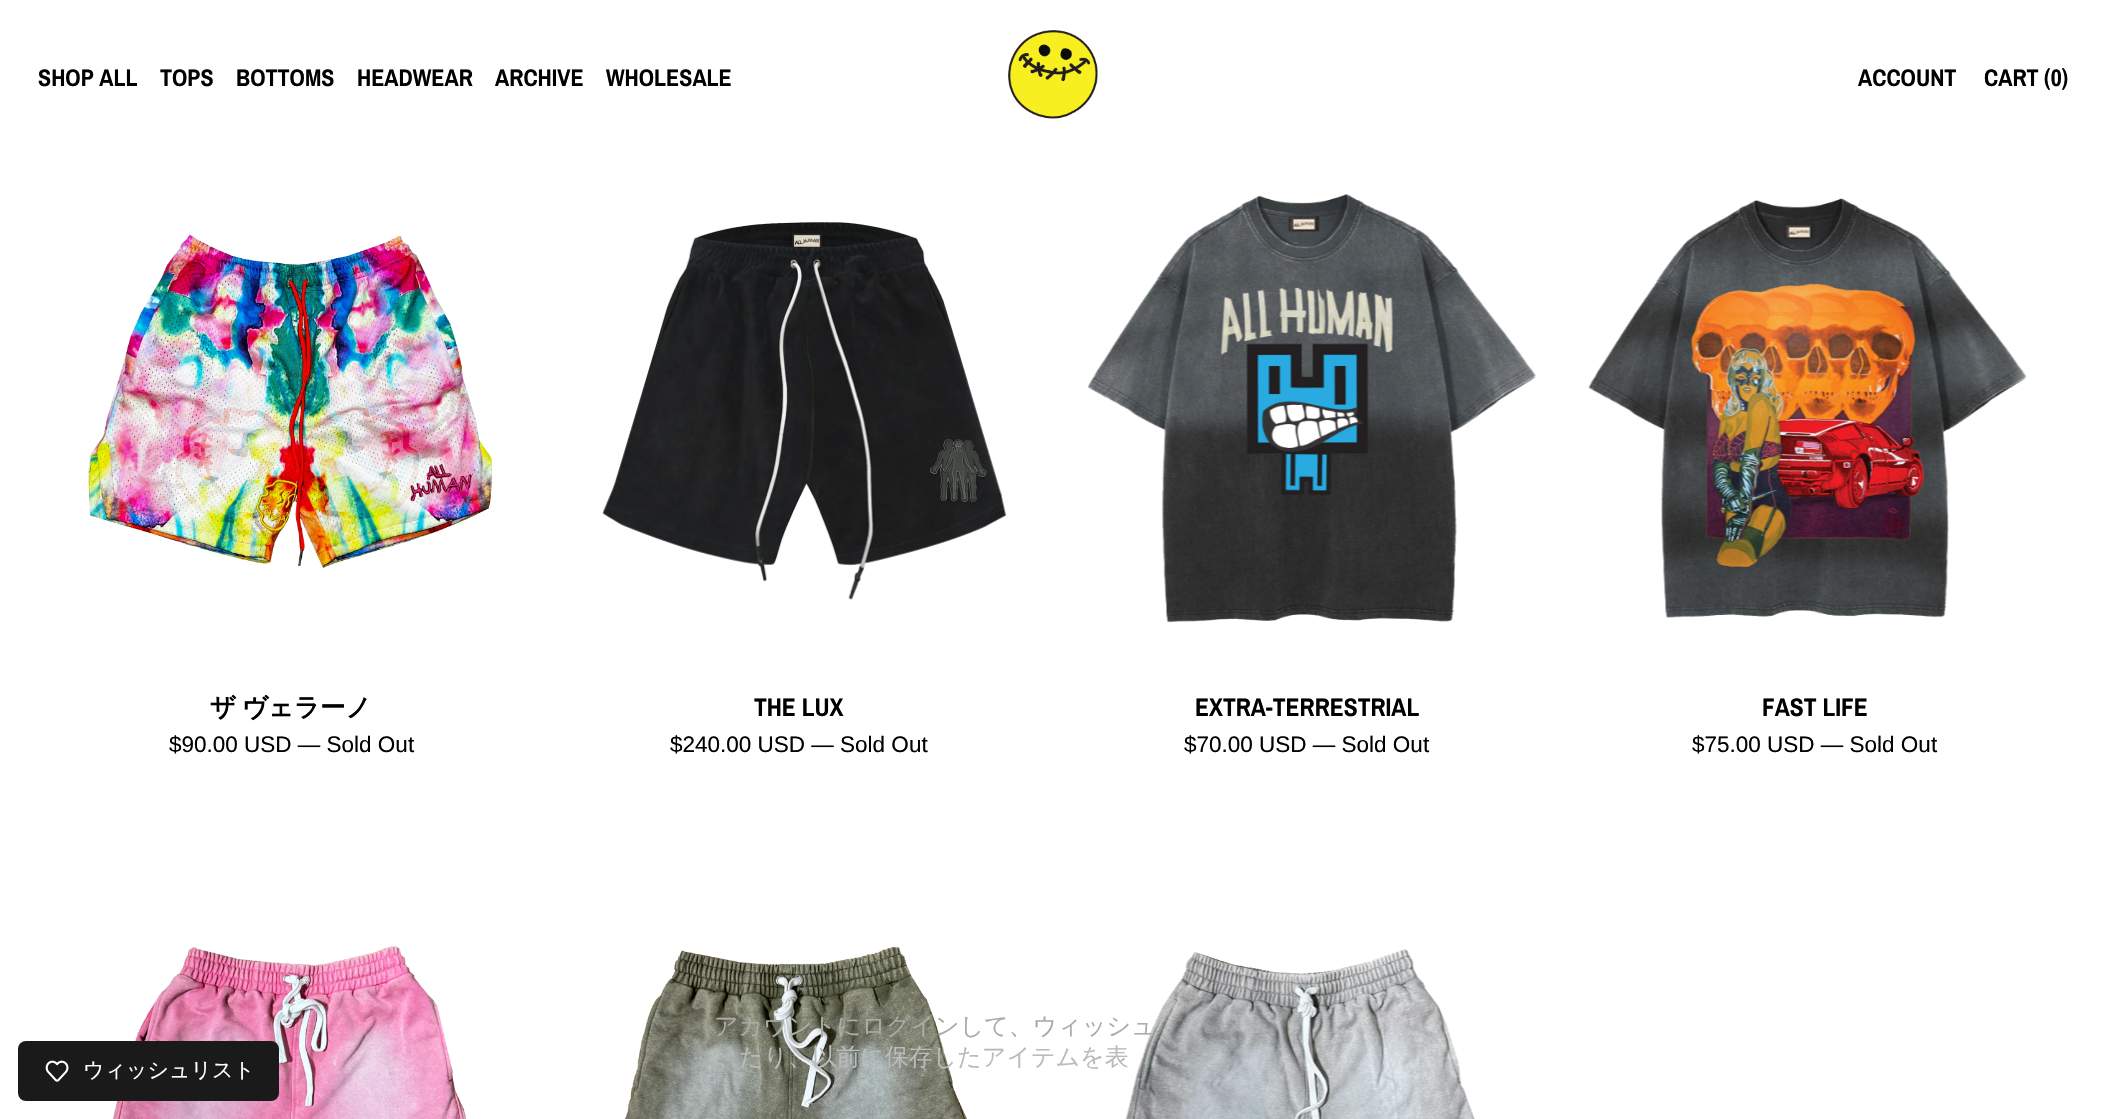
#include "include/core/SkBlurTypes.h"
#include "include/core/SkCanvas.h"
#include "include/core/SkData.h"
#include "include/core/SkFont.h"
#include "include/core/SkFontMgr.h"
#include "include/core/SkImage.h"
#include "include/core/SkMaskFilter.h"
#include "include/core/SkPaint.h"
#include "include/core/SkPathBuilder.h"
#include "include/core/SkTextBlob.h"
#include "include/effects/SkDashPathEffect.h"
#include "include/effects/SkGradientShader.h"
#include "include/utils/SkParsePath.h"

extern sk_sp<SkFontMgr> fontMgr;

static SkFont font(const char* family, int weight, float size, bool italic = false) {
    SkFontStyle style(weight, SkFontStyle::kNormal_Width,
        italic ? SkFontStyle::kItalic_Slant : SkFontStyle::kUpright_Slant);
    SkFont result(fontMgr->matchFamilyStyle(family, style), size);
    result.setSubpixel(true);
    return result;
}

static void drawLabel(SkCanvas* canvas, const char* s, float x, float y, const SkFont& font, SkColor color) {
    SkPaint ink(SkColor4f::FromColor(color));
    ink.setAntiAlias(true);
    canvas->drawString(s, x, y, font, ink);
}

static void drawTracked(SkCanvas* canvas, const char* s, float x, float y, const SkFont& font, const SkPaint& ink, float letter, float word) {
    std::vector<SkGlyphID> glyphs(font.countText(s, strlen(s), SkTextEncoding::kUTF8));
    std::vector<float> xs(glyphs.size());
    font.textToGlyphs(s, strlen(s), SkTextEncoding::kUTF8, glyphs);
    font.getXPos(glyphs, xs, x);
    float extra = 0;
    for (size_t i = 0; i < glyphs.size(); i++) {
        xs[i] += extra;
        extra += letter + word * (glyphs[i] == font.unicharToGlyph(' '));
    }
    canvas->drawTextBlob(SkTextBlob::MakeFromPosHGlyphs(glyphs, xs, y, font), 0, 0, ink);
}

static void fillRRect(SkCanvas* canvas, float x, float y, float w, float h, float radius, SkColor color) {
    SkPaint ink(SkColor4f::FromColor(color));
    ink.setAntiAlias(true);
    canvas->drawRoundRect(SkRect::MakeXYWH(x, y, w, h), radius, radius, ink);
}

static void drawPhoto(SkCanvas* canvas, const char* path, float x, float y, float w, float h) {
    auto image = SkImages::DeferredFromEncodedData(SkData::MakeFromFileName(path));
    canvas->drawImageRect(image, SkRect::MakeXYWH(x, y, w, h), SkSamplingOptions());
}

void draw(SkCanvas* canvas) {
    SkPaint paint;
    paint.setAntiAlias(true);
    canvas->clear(0xFFFFFFFF);
    SkFont font1 = font("Archivo Narrow", 700, 24);
    drawLabel(canvas, "SHOP ALL", 38, 86, font1, 0xFF000000);
    drawLabel(canvas, "TOPS", 160, 86, font1, 0xFF000000);
    drawLabel(canvas, "BOTTOMS", 236, 86, font1, 0xFF000000);
    drawLabel(canvas, "HEADWEAR", 357, 86, font1, 0xFF000000);
    drawLabel(canvas, "ARCHIVE", 495, 86, font1, 0xFF000000);
    drawLabel(canvas, "WHOLESALE", 606, 86, font1, 0xFF000000);
    drawPhoto(canvas, "assets/img1.png", 1008, 30, 90, 89);
    drawLabel(canvas, "ACCOUNT", 1858, 86, font1, 0xFF000000);
    drawLabel(canvas, "CART (0)", 1984, 86, font1, 0xFF000000);
    drawPhoto(canvas, "assets/img2.png", 88, 234, 405, 334);
    SkFont font2 = font("WenQuanYi Zen Hei", 700, 25.5f);
    paint.setColor(0xFF000000);
    drawTracked(canvas, "ザ ヴェラーノ", 210, 716, font2, paint, 0, -2);
    SkFont font3 = font("Liberation Sans", 400, 22.5f);
    drawLabel(canvas, "$90.00 USD — Sold Out", 169, 752, font3, 0xFF000000);
    drawPhoto(canvas, "assets/img3.png", 602, 222, 405, 378);
    SkFont font4 = font("Archivo Narrow", 700, 25.5f);
    drawLabel(canvas, "THE LUX", 754, 716, font4, 0xFF000000);
    drawLabel(canvas, "$240.00 USD — Sold Out", 670, 752, font3, 0xFF000000);
    drawPhoto(canvas, "assets/img4.png", 1087, 194, 449, 429);
    drawLabel(canvas, "EXTRA-TERRESTRIAL", 1195, 716, font4, 0xFF000000);
    drawLabel(canvas, "$70.00 USD — Sold Out", 1184, 752, font3, 0xFF000000);
    drawPhoto(canvas, "assets/img5.png", 1588, 198, 439, 420);
    drawLabel(canvas, "FAST LIFE", 1762, 716, font4, 0xFF000000);
    drawLabel(canvas, "$75.00 USD — Sold Out", 1692, 752, font3, 0xFF000000);
    drawPhoto(canvas, "assets/img6.png", 112, 945, 354, 174);
    drawPhoto(canvas, "assets/img7.png", 624, 946, 343, 173);
    drawPhoto(canvas, "assets/img8.png", 1125, 949, 350, 170);
    fillRRect(canvas, 18, 1041, 261, 60, 8, 0xFF1A1A1A);
    drawPhoto(canvas, "assets/img9.png", 45, 1060, 24, 22);
    SkFont font5 = font("WenQuanYi Zen Hei", 500, 21);
    drawLabel(canvas, "ウィッシュリスト", 83, 1077, font5, 0xFFFFFFFF);
    SkFont font6 = font("WenQuanYi Zen Hei", 500, 24);
    drawLabel(canvas, "アカウントにログインして、ウィッシュ", 714, 1034, font6, 0xFFAAACA7);
    drawLabel(canvas, "たり、以前に保存したアイテムを表", 739, 1065, font6, 0xFFB9BCB9);
}
